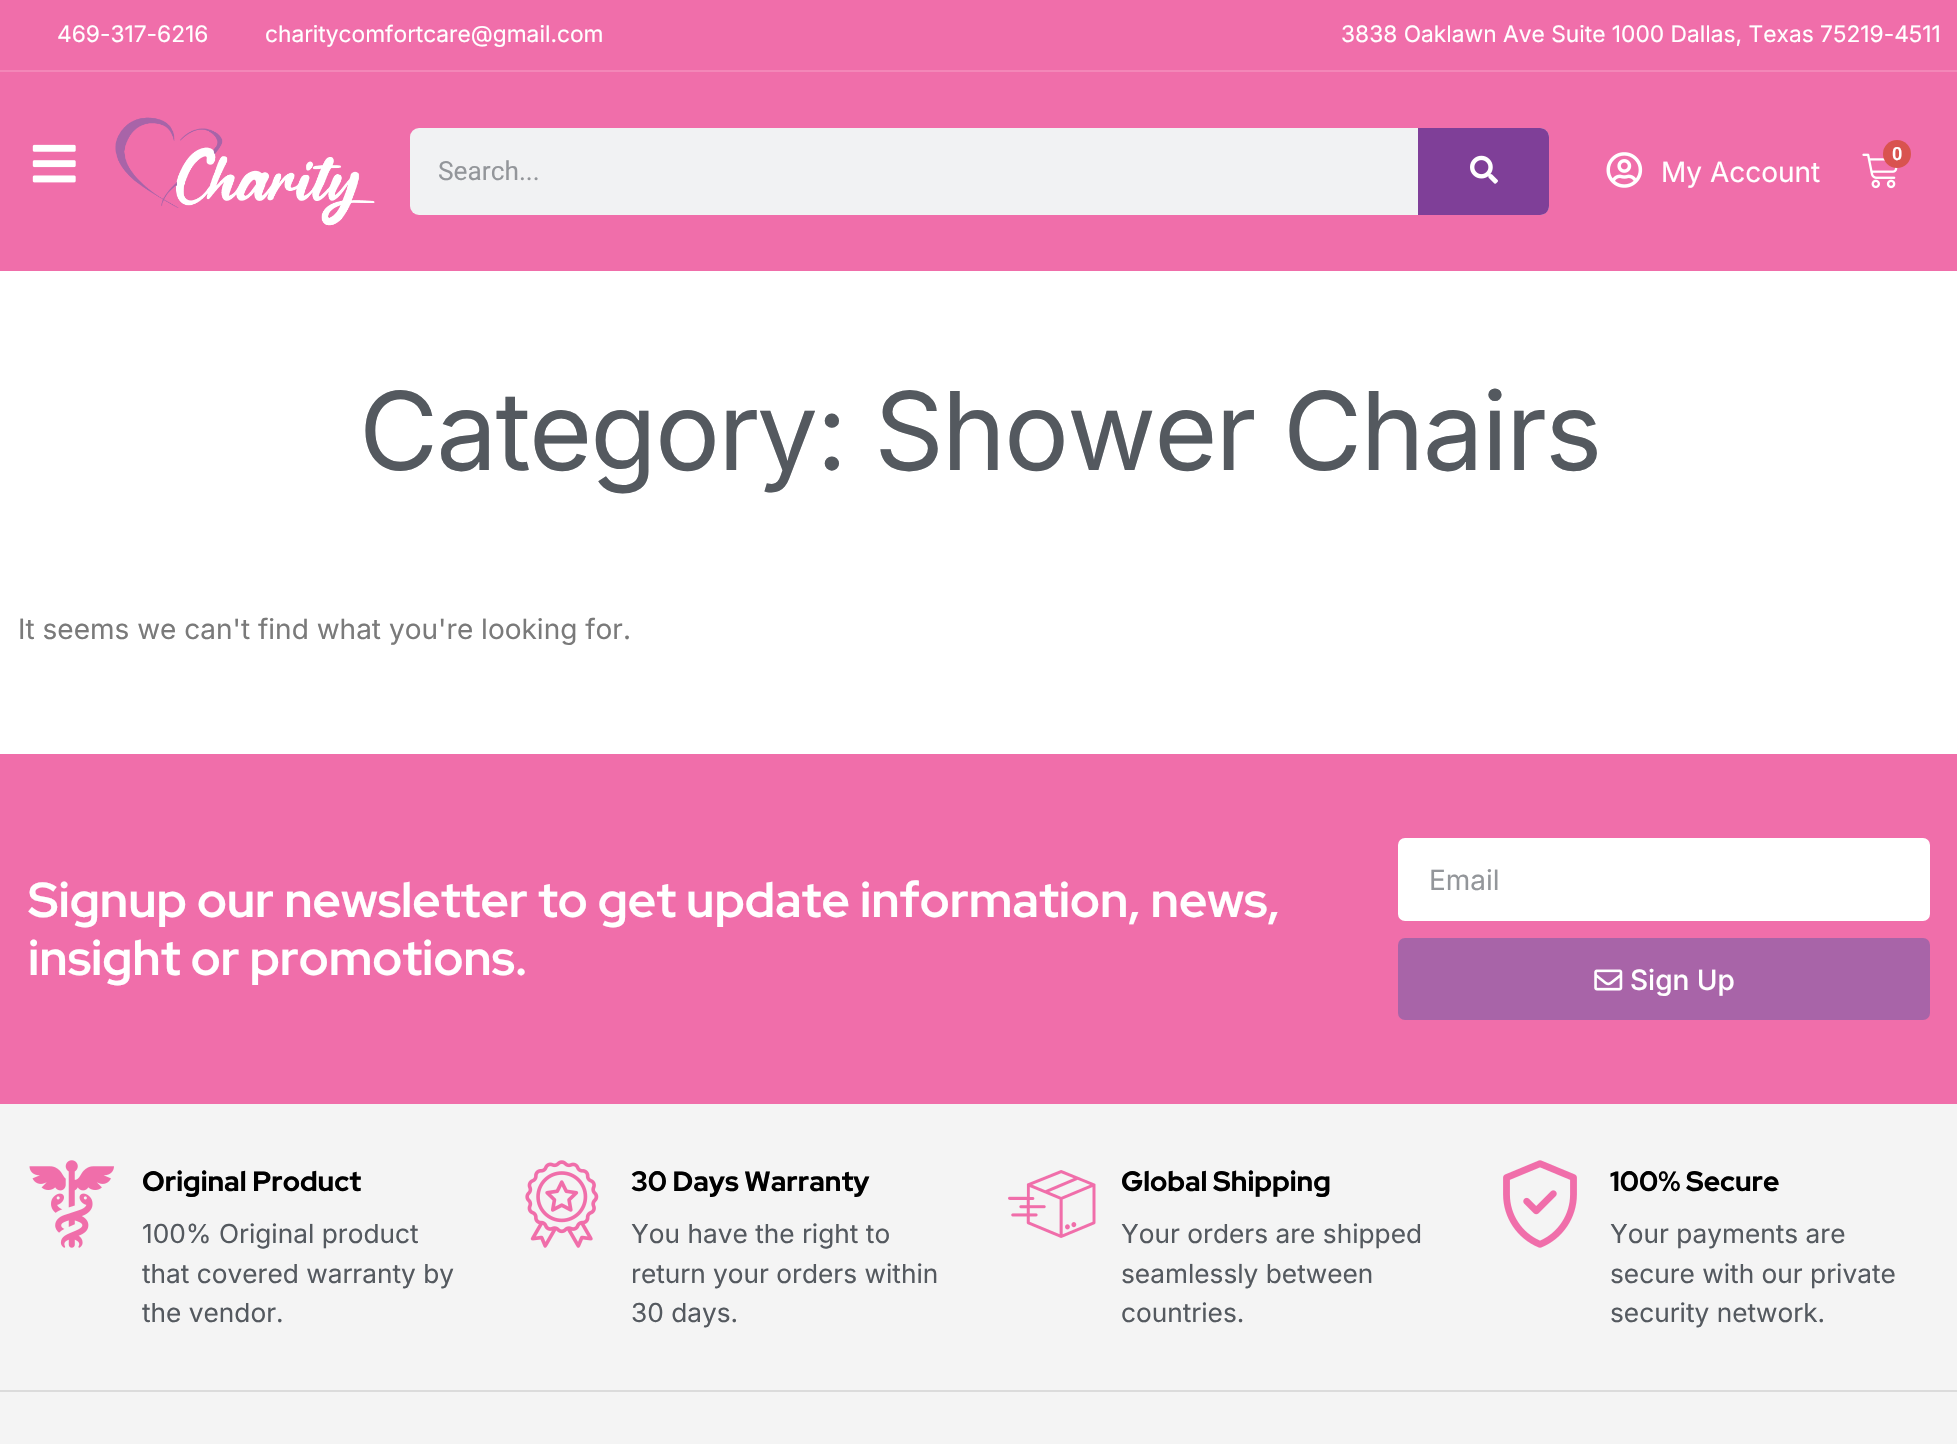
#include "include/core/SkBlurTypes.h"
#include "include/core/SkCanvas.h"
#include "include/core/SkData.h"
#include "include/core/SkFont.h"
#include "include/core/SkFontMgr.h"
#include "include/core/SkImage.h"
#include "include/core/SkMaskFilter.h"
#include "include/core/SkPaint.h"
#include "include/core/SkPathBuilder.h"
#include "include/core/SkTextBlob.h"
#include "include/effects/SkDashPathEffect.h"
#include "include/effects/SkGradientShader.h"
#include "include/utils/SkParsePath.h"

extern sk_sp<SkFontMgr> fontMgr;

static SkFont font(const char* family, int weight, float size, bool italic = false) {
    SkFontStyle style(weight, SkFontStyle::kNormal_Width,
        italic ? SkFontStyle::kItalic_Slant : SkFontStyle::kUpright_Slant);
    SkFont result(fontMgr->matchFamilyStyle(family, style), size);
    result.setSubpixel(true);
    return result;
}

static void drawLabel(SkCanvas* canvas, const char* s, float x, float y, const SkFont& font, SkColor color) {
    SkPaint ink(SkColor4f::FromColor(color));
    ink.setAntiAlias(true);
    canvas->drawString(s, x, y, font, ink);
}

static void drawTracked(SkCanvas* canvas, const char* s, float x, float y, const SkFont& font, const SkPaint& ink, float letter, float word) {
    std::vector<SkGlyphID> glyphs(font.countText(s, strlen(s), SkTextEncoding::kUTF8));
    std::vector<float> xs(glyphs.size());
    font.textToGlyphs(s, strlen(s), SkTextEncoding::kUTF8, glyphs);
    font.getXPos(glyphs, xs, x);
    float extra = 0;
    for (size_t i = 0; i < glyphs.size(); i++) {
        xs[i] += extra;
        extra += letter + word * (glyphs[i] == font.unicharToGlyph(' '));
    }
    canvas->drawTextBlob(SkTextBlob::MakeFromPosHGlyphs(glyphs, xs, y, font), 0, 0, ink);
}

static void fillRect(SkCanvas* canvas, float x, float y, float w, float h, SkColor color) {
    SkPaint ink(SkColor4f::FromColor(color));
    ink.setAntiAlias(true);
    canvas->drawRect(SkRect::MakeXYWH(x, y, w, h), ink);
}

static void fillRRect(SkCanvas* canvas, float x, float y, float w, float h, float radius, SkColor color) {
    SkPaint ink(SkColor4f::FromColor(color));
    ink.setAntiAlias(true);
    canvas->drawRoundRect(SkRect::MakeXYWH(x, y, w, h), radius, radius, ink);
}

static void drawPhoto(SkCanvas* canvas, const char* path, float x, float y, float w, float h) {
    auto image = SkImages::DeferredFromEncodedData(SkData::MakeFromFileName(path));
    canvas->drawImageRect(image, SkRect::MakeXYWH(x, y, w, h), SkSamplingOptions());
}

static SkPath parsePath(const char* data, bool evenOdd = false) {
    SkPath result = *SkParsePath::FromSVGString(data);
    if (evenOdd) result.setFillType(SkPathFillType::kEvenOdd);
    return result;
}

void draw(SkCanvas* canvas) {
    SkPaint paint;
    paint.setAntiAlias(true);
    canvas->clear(0xFFFFFFFF);
    fillRect(canvas, 0, 0, 1957, 70, 0xFFF06EAA);
    fillRect(canvas, 0, 70, 1957, 2, 0xFFF387B8);
    SkFont font1 = font("Inter", 400, 22.75f);
    drawLabel(canvas, "469-317-6216", 57, 42, font1, 0xFFFFFFFF);
    drawLabel(canvas, "charitycomfortcare@gmail.com", 265, 42, font1, 0xFFFFFFFF);
    drawLabel(canvas, "3838 Oaklawn Ave Suite 1000 Dallas, Texas 75219-4511", 1341, 42, font1, 0xFFFFFFFF);
    fillRect(canvas, 0, 72, 1957, 199, 0xFFF06EAA);
    drawPhoto(canvas, "assets/img1.png", 32, 144, 44, 39);
    drawPhoto(canvas, "assets/img2.png", 115, 117, 260, 109);
    fillRRect(canvas, 410, 128, 1139, 87, 9, 0xFFF1F2F3);
    SkFont font2 = font("Roboto", 400, 26.25f);
    drawLabel(canvas, "Search...", 438, 180, font2, 0xFF93969A);
    paint.setColor(0xFF7F3F98);
    canvas->drawPath(parsePath("M1418 128H1540C1545 128 1549 132 1549 137V206C1549 211 1545 215 1540 215H1418Z"), paint);
    drawPhoto(canvas, "assets/img3.png", 1470, 155, 28, 29);
    drawPhoto(canvas, "assets/img4.png", 1862, 153, 36, 36);
    paint.setColor(0xFFD9534F);
    canvas->drawCircle(1897, 154, 14, paint);
    SkFont font3 = font("Roboto", 600, 18);
    drawLabel(canvas, "0", 1892, 160, font3, 0xFFFFFFFF);
    drawPhoto(canvas, "assets/img5.png", 1606, 152, 37, 36);
    SkFont font4 = font("Inter", 400, 28);
    drawLabel(canvas, "My Account", 1661, 182, font4, 0xFFFFFFFF);
    SkFont font5 = font("Inter", 400, 108.5f);
    paint.setColor(0xFF54595F);
    drawTracked(canvas, "Category: Shower Chairs", 359, 470, font5, paint, -1.9f, 0);
    drawLabel(canvas, "It seems we can't find what you're looking for.", 18, 639, font4, 0xFF7A7A7A);
    fillRect(canvas, 0, 754, 1957, 350, 0xFFF06EAA);
    SkFont font6 = font("Red Hat Display", 700, 49);
    drawLabel(canvas, "Signup our newsletter to get update information, news,", 28, 917, font6, 0xFFFFFFFF);
    drawLabel(canvas, "insight or promotions.", 28, 975, font6, 0xFFFFFFFF);
    paint.setColor(0xFFFFFFFF);
    canvas->drawRoundRect(SkRect::MakeXYWH(1399, 839, 530, 81), 6, 6, paint);
    paint.setStroke(true);
    paint.setStrokeWidth(2);
    canvas->drawRoundRect(SkRect::MakeXYWH(1399, 839, 530, 81), 6, 6, paint);
    drawLabel(canvas, "Email", 1429, 890, font4, 0xFF93969A);
    fillRRect(canvas, 1398, 938, 532, 82, 7, 0xFFA864A8);
    drawPhoto(canvas, "assets/img6.png", 1594, 969, 29, 22);
    SkFont font7 = font("Inter", 500, 28);
    drawLabel(canvas, "Sign Up", 1630, 990, font7, 0xFFFFFFFF);
    fillRect(canvas, 0, 1104, 1957, 340, 0xFFF4F4F4);
    fillRect(canvas, 0, 1390, 1957, 2, 0xFFDBDBDB);
    drawPhoto(canvas, "assets/img7.png", 29, 1160, 85, 88);
    SkFont font8 = font("Red Hat Display", 800, 28);
    drawLabel(canvas, "Original Product", 142, 1191, font8, 0xFF000000);
    SkFont font9 = font("Inter", 400, 26.25f);
    drawLabel(canvas, "100% Original product", 142, 1243, font9, 0xFF54595F);
    drawLabel(canvas, "that covered warranty by", 142, 1283, font9, 0xFF54595F);
    drawLabel(canvas, "the vendor.", 142, 1322, font9, 0xFF54595F);
    drawPhoto(canvas, "assets/img8.png", 525, 1160, 74, 88);
    drawLabel(canvas, "30 Days Warranty", 631, 1191, font8, 0xFF000000);
    drawLabel(canvas, "You have the right to", 631, 1243, font9, 0xFF54595F);
    drawLabel(canvas, "return your orders within", 631, 1283, font9, 0xFF54595F);
    drawLabel(canvas, "30 days.", 631, 1322, font9, 0xFF54595F);
    drawPhoto(canvas, "assets/img9.png", 1008, 1170, 88, 68);
    drawLabel(canvas, "Global Shipping", 1121, 1191, font8, 0xFF000000);
    drawLabel(canvas, "Your orders are shipped", 1121, 1243, font9, 0xFF54595F);
    drawLabel(canvas, "seamlessly between", 1121, 1283, font9, 0xFF54595F);
    drawLabel(canvas, "countries.", 1121, 1322, font9, 0xFF54595F);
    drawPhoto(canvas, "assets/img10.png", 1503, 1160, 74, 88);
    drawLabel(canvas, "100% Secure", 1610, 1191, font8, 0xFF000000);
    drawLabel(canvas, "Your payments are", 1610, 1243, font9, 0xFF54595F);
    drawLabel(canvas, "secure with our private", 1610, 1283, font9, 0xFF54595F);
    drawLabel(canvas, "security network.", 1610, 1322, font9, 0xFF54595F);
}
